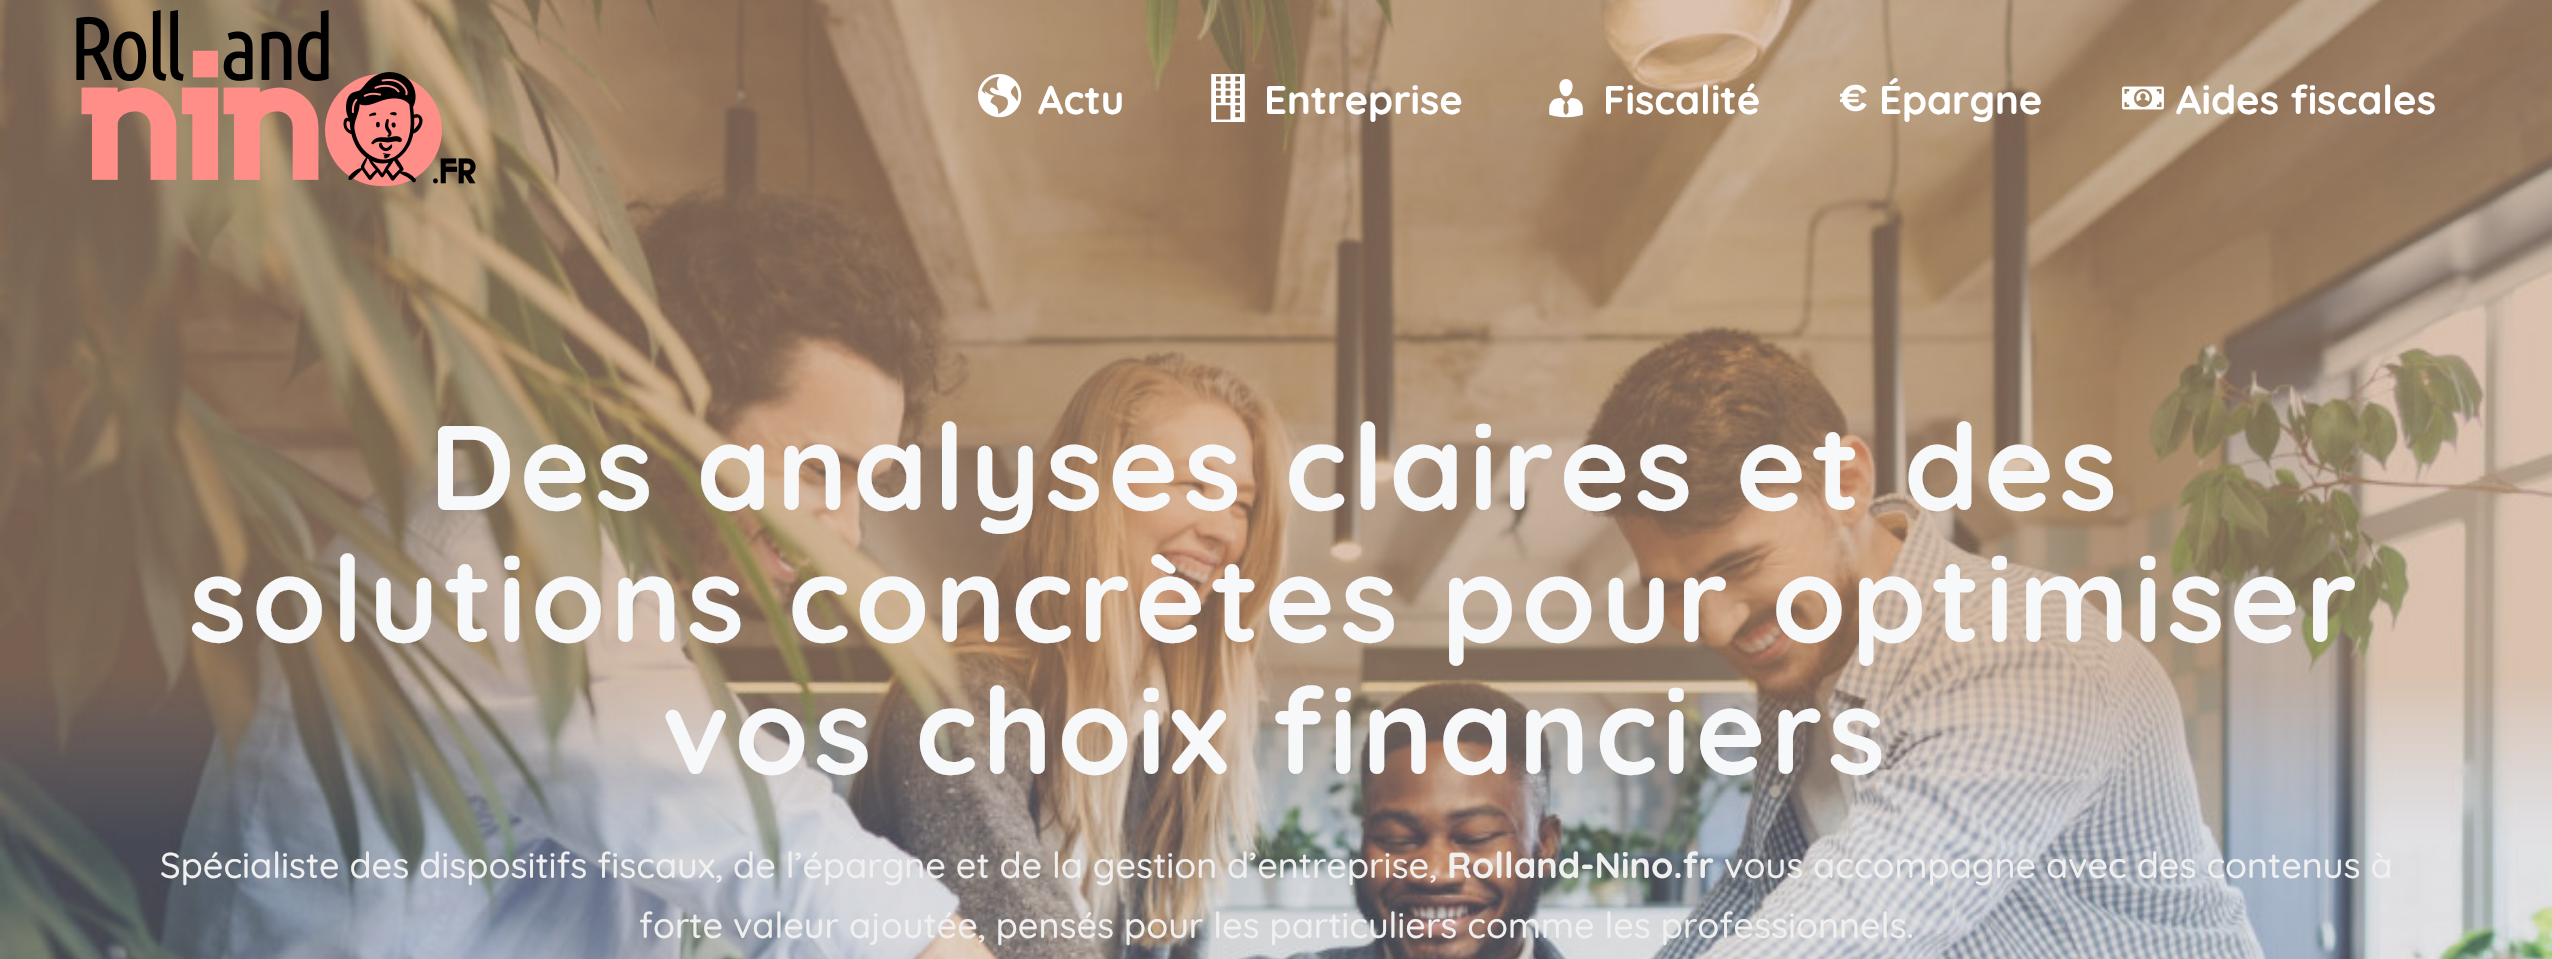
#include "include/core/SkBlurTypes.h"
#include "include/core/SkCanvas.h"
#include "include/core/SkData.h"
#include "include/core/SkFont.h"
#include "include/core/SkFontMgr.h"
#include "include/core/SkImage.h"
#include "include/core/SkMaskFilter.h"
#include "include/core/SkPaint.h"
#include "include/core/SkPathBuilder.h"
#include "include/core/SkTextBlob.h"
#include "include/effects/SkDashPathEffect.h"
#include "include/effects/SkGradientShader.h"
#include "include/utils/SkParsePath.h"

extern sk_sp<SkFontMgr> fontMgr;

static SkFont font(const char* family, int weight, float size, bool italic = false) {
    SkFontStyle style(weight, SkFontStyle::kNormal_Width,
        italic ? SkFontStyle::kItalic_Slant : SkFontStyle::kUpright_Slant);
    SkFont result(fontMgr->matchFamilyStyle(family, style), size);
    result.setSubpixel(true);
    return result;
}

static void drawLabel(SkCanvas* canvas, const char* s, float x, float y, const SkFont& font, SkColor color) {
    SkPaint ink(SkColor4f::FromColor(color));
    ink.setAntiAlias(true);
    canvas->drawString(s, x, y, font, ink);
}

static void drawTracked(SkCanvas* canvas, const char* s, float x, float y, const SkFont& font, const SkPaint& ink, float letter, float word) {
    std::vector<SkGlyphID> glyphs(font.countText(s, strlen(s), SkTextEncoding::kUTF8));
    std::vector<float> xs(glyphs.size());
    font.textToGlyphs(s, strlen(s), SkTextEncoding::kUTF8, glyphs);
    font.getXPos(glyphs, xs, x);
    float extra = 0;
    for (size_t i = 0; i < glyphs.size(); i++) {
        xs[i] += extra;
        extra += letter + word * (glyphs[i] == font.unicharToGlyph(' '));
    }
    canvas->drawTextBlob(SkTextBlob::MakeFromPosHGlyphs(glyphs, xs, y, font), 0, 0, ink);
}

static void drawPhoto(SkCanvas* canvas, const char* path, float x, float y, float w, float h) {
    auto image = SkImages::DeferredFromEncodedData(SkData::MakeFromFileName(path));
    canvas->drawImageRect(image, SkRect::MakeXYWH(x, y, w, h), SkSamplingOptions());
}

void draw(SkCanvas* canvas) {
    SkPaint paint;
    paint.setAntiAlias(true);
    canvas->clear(0xFFFFFFFF);
    drawPhoto(canvas, "assets/img7.png", 0, 0, 2552, 959);
    drawPhoto(canvas, "assets/img1.png", 76, 10, 400, 176);
    drawPhoto(canvas, "assets/img2.png", 978, 74, 44, 44);
    SkFont font1 = font("Quicksand", 700, 40);
    drawLabel(canvas, "Actu", 1038, 114, font1, 0xFFFFFFFF);
    drawPhoto(canvas, "assets/img3.png", 1211, 74, 34, 48);
    drawLabel(canvas, "Entreprise", 1264, 114, font1, 0xFFFFFFFF);
    drawPhoto(canvas, "assets/img4.png", 1549, 79, 34, 39);
    drawLabel(canvas, "Fiscalité", 1603, 114, font1, 0xFFFFFFFF);
    drawPhoto(canvas, "assets/img5.png", 1840, 84, 27, 28);
    drawLabel(canvas, "Épargne", 1879, 114, font1, 0xFFFFFFFF);
    drawPhoto(canvas, "assets/img6.png", 2122, 86, 42, 24);
    drawLabel(canvas, "Aides fiscales", 2176, 114, font1, 0xFFFFFFFF);
    SkFont font2 = font("Quicksand", 700, 120);
    paint.setColor(0xFFF7F8F9);
    drawTracked(canvas, "Des analyses claires et des", 429, 510, font2, paint, 4.8f, 0);
    drawTracked(canvas, "solutions concrètes pour optimiser", 189, 642, font2, paint, 4.8f, 0);
    drawTracked(canvas, "vos choix financiers", 662, 774, font2, paint, 4.8f, 0);
    SkFont font3 = font("Quicksand", 500, 36);
    drawLabel(canvas, "Spécialiste des dispositifs fiscaux, de l’épargne et de la gestion d’entreprise,", 160, 878, font3, 0xFFF0F0F0);
    SkFont font4 = font("Quicksand", 700, 36);
    drawLabel(canvas, "Rolland-Nino.fr", 1447, 878, font4, 0xFFF0F0F0);
    drawLabel(canvas, "vous accompagne avec des contenus à", 1724, 878, font3, 0xFFF0F0F0);
    drawLabel(canvas, "forte valeur ajoutée, pensés pour les particuliers comme les professionnels.", 639, 938, font3, 0xFFF0F0F0);
}
